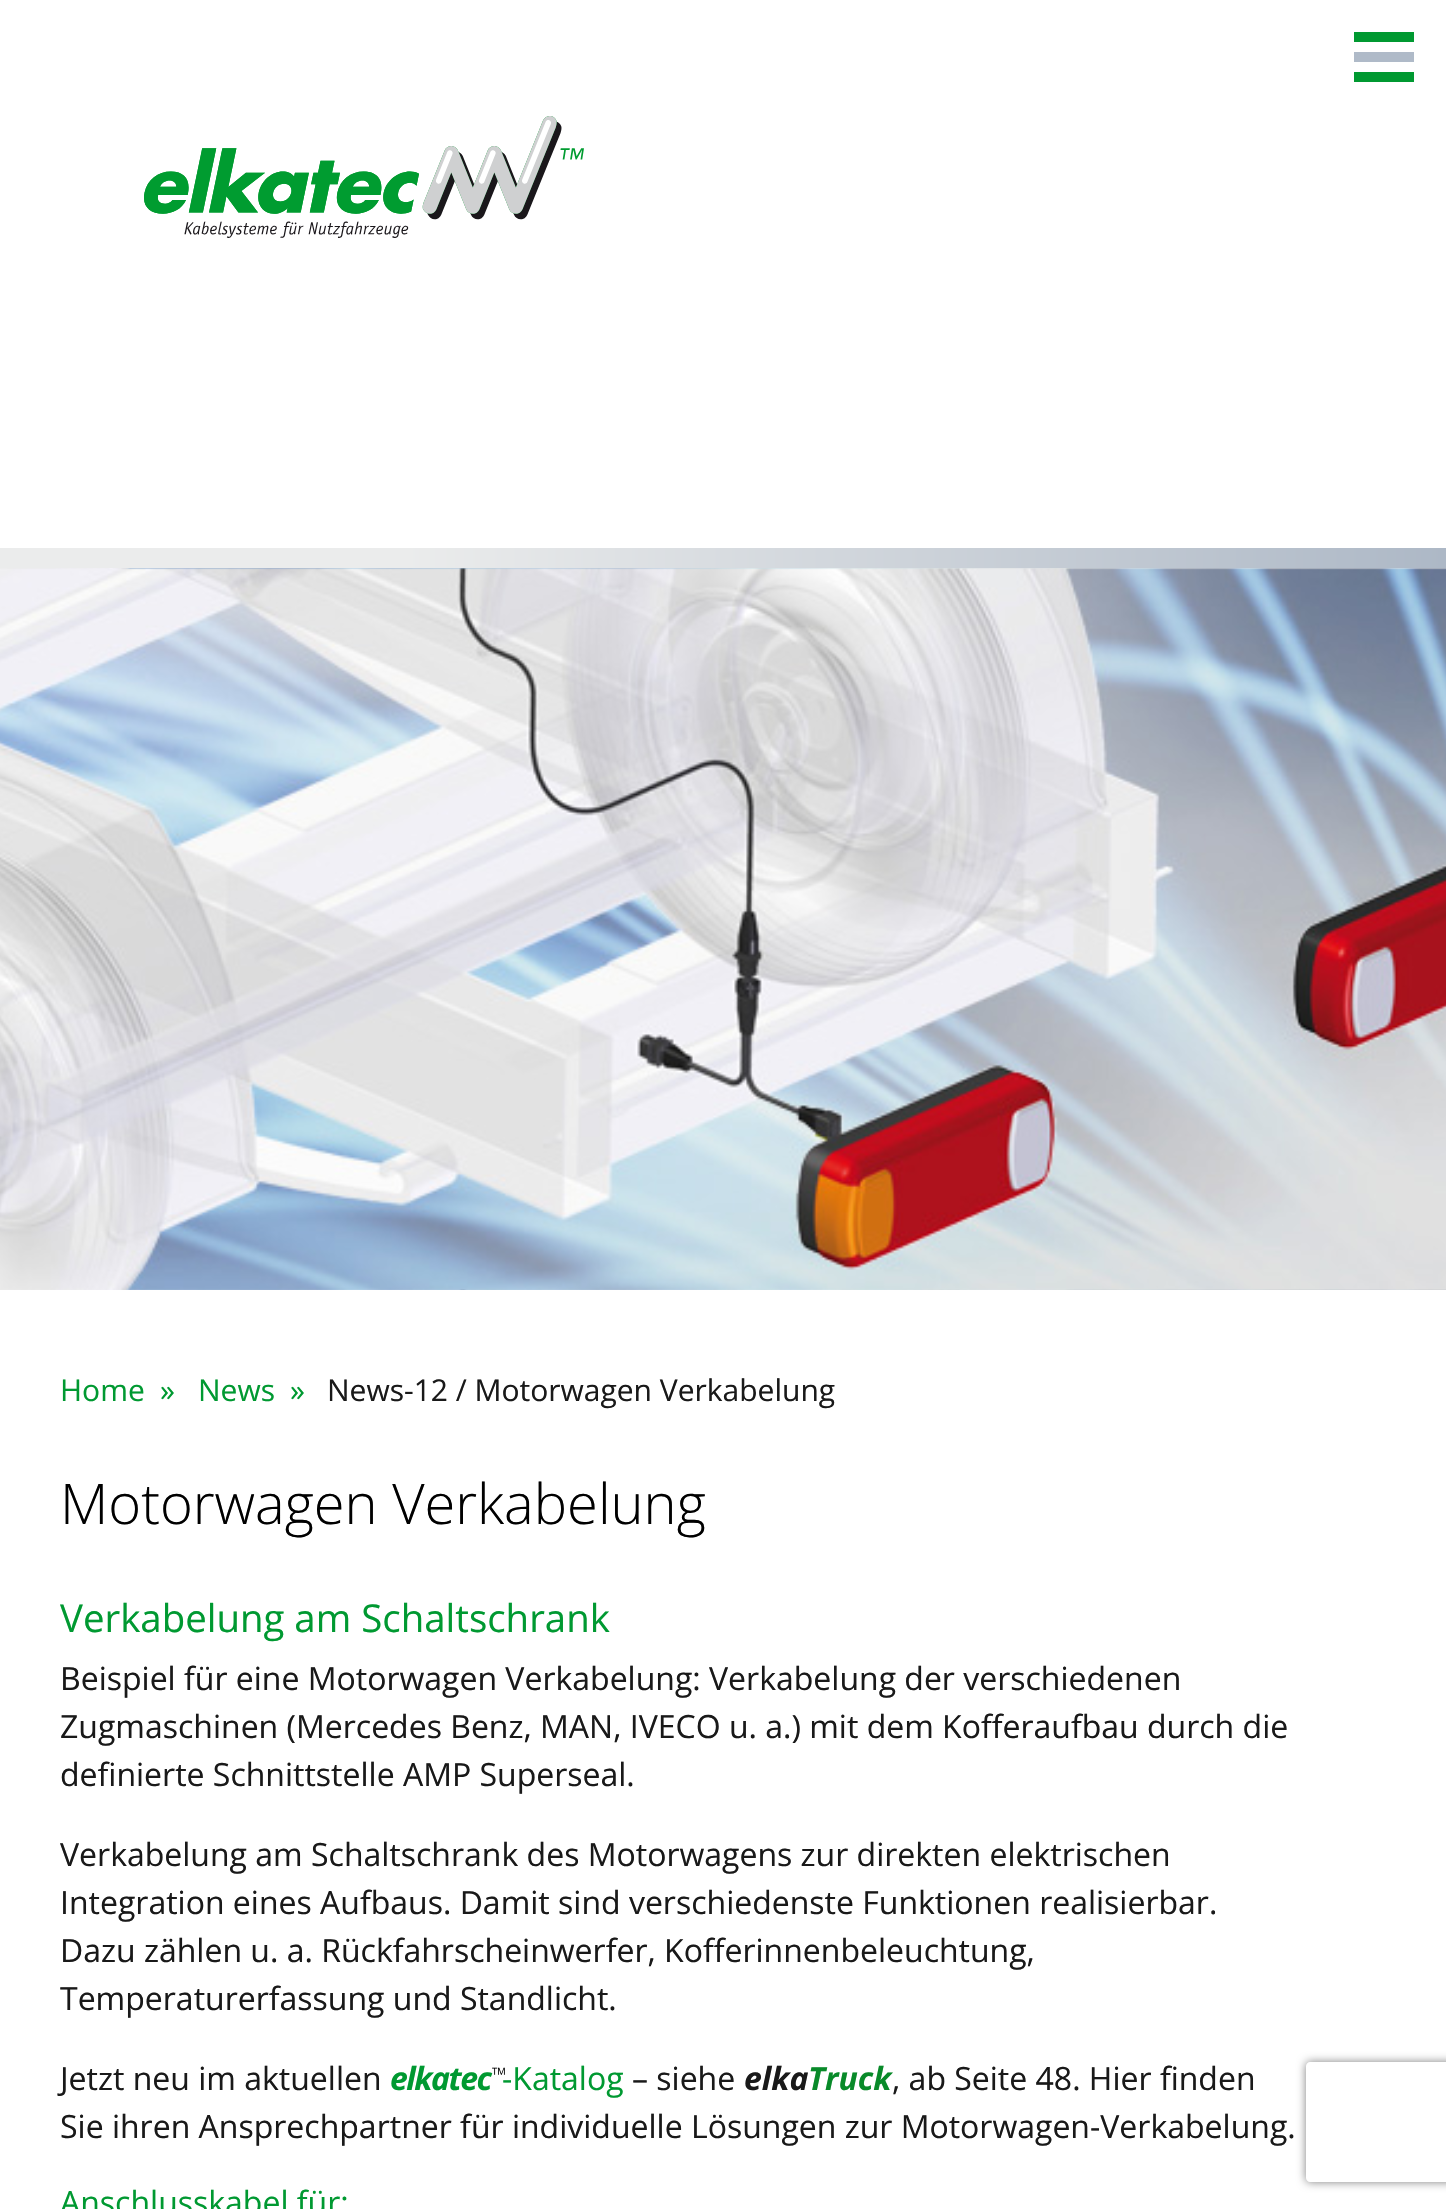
#include "include/core/SkBlurTypes.h"
#include "include/core/SkCanvas.h"
#include "include/core/SkData.h"
#include "include/core/SkFont.h"
#include "include/core/SkFontMgr.h"
#include "include/core/SkImage.h"
#include "include/core/SkMaskFilter.h"
#include "include/core/SkPaint.h"
#include "include/core/SkPathBuilder.h"
#include "include/core/SkTextBlob.h"
#include "include/effects/SkDashPathEffect.h"
#include "include/effects/SkGradientShader.h"
#include "include/utils/SkParsePath.h"

extern sk_sp<SkFontMgr> fontMgr;

static SkFont font(const char* family, int weight, float size, bool italic = false) {
    SkFontStyle style(weight, SkFontStyle::kNormal_Width,
        italic ? SkFontStyle::kItalic_Slant : SkFontStyle::kUpright_Slant);
    SkFont result(fontMgr->matchFamilyStyle(family, style), size);
    result.setSubpixel(true);
    return result;
}

static void drawLabel(SkCanvas* canvas, const char* s, float x, float y, const SkFont& font, SkColor color) {
    SkPaint ink(SkColor4f::FromColor(color));
    ink.setAntiAlias(true);
    canvas->drawString(s, x, y, font, ink);
}

static void drawTracked(SkCanvas* canvas, const char* s, float x, float y, const SkFont& font, const SkPaint& ink, float letter, float word) {
    std::vector<SkGlyphID> glyphs(font.countText(s, strlen(s), SkTextEncoding::kUTF8));
    std::vector<float> xs(glyphs.size());
    font.textToGlyphs(s, strlen(s), SkTextEncoding::kUTF8, glyphs);
    font.getXPos(glyphs, xs, x);
    float extra = 0;
    for (size_t i = 0; i < glyphs.size(); i++) {
        xs[i] += extra;
        extra += letter + word * (glyphs[i] == font.unicharToGlyph(' '));
    }
    canvas->drawTextBlob(SkTextBlob::MakeFromPosHGlyphs(glyphs, xs, y, font), 0, 0, ink);
}

static void fillRect(SkCanvas* canvas, float x, float y, float w, float h, SkColor color) {
    SkPaint ink(SkColor4f::FromColor(color));
    ink.setAntiAlias(true);
    canvas->drawRect(SkRect::MakeXYWH(x, y, w, h), ink);
}

static void drawPhoto(SkCanvas* canvas, const char* path, float x, float y, float w, float h) {
    auto image = SkImages::DeferredFromEncodedData(SkData::MakeFromFileName(path));
    canvas->drawImageRect(image, SkRect::MakeXYWH(x, y, w, h), SkSamplingOptions());
}

static SkPath parsePath(const char* data, bool evenOdd = false) {
    SkPath result = *SkParsePath::FromSVGString(data);
    if (evenOdd) result.setFillType(SkPathFillType::kEvenOdd);
    return result;
}

void draw(SkCanvas* canvas) {
    SkPaint paint;
    paint.setAntiAlias(true);
    canvas->clear(0xFFFFFFFF);
    fillRect(canvas, 1354, 32, 60, 10, 0xFF009931);
    fillRect(canvas, 1354, 52, 60, 10, 0xFFAFBAC8);
    fillRect(canvas, 1354, 72, 60, 10, 0xFF009931);
    drawPhoto(canvas, "assets/img1.png", 144, 116, 440, 122);
    drawPhoto(canvas, "assets/img2.png", 0, 568, 1446, 722);
    {
        const SkColor colors[] = {0xFFEBECEC, 0xFFADB8C6};
        const float stops[] = {0.28f, 1};
        const SkPoint ends[] = {{0, 558}, {1446, 558}};
        paint.setShader(SkGradientShader::MakeLinear(ends, colors, stops, 2, SkTileMode::kClamp));
        paint.setAlpha(255);
    }
    canvas->drawRect(SkRect::MakeXYWH(0, 548, 1446, 20), paint);
    SkFont font1 = font("Open Sans", 400, 30);
    drawLabel(canvas, "Home", 60, 1401, font1, 0xFF009931);
    drawLabel(canvas, "»", 160, 1401, font1, 0xFF009931);
    drawLabel(canvas, "News", 198, 1401, font1, 0xFF009931);
    drawLabel(canvas, "»", 290, 1401, font1, 0xFF009931);
    drawLabel(canvas, "News-12 / Motorwagen Verkabelung", 327, 1401, font1, 0xFF191919);
    SkFont font2 = font("Open Sans", 300, 56);
    drawLabel(canvas, "Motorwagen Verkabelung", 60, 1524, font2, 0xFF000000);
    SkFont font3 = font("Open Sans", 400, 38.4f);
    drawLabel(canvas, "Verkabelung am Schaltschrank", 60, 1632, font3, 0xFF009931);
    SkFont font4 = font("Open Sans", 400, 32);
    drawLabel(canvas, "Beispiel für eine Motorwagen Verkabelung: Verkabelung der verschiedenen", 60, 1690, font4, 0xFF191919);
    drawLabel(canvas, "Zugmaschinen (Mercedes Benz, MAN, IVECO u. a.) mit dem Kofferaufbau durch die", 60, 1738, font4, 0xFF191919);
    drawLabel(canvas, "definierte Schnittstelle AMP Superseal.", 60, 1786, font4, 0xFF191919);
    drawLabel(canvas, "Verkabelung am Schaltschrank des Motorwagens zur direkten elektrischen", 60, 1866, font4, 0xFF191919);
    drawLabel(canvas, "Integration eines Aufbaus. Damit sind verschiedenste Funktionen realisierbar.", 60, 1914, font4, 0xFF191919);
    drawLabel(canvas, "Dazu zählen u. a. Rückfahrscheinwerfer, Kofferinnenbeleuchtung,", 60, 1962, font4, 0xFF191919);
    drawLabel(canvas, "Temperaturerfassung und Standlicht.", 60, 2010, font4, 0xFF191919);
    drawLabel(canvas, "Jetzt neu im aktuellen", 60, 2090, font4, 0xFF191919);
    SkFont font5 = font("Open Sans", 700, 32, true);
    paint.setShader(nullptr);
    paint.setColor(0xFF009931);
    drawTracked(canvas, "elkatec", 390, 2090, font5, paint, -1.5f, 0);
    drawLabel(canvas, "-Katalog", 502, 2090, font4, 0xFF009931);
    SkFont font6 = font("Open Sans", 300, 20);
    paint.setColor(0xFF000000);
    drawTracked(canvas, "™", 492, 2082, font6, paint, -1.5f, 0);
    drawLabel(canvas, "– siehe", 632, 2090, font4, 0xFF191919);
    drawLabel(canvas, "elka", 744, 2090, font5, 0xFF191919);
    drawLabel(canvas, "Truck", 808, 2090, font5, 0xFF088A29);
    drawLabel(canvas, ", ab Seite 48. Hier finden", 892, 2090, font4, 0xFF191919);
    drawLabel(canvas, "Sie ihren Ansprechpartner für individuelle Lösungen zur Motorwagen-Verkabelung.", 60, 2138, font4, 0xFF191919);
    drawLabel(canvas, "Anschlusskabel für:", 60, 2214, font4, 0xFF009931);
    canvas->save();
    canvas->clipPath(parsePath("M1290 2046H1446V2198H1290ZM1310 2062H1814C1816 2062 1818 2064 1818 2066V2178C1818 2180 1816 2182 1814 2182H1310C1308 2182 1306 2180 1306 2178V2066C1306 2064 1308 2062 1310 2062Z", true), true);
    paint.setColor(0xFF808080);
    paint.setMaskFilter(SkMaskFilter::MakeBlur(kNormal_SkBlurStyle, 5));
    canvas->drawRoundRect(SkRect::MakeXYWH(1306, 2062, 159, 120), 4, 4, paint);
    paint.setMaskFilter(nullptr);
    canvas->restore();
}
